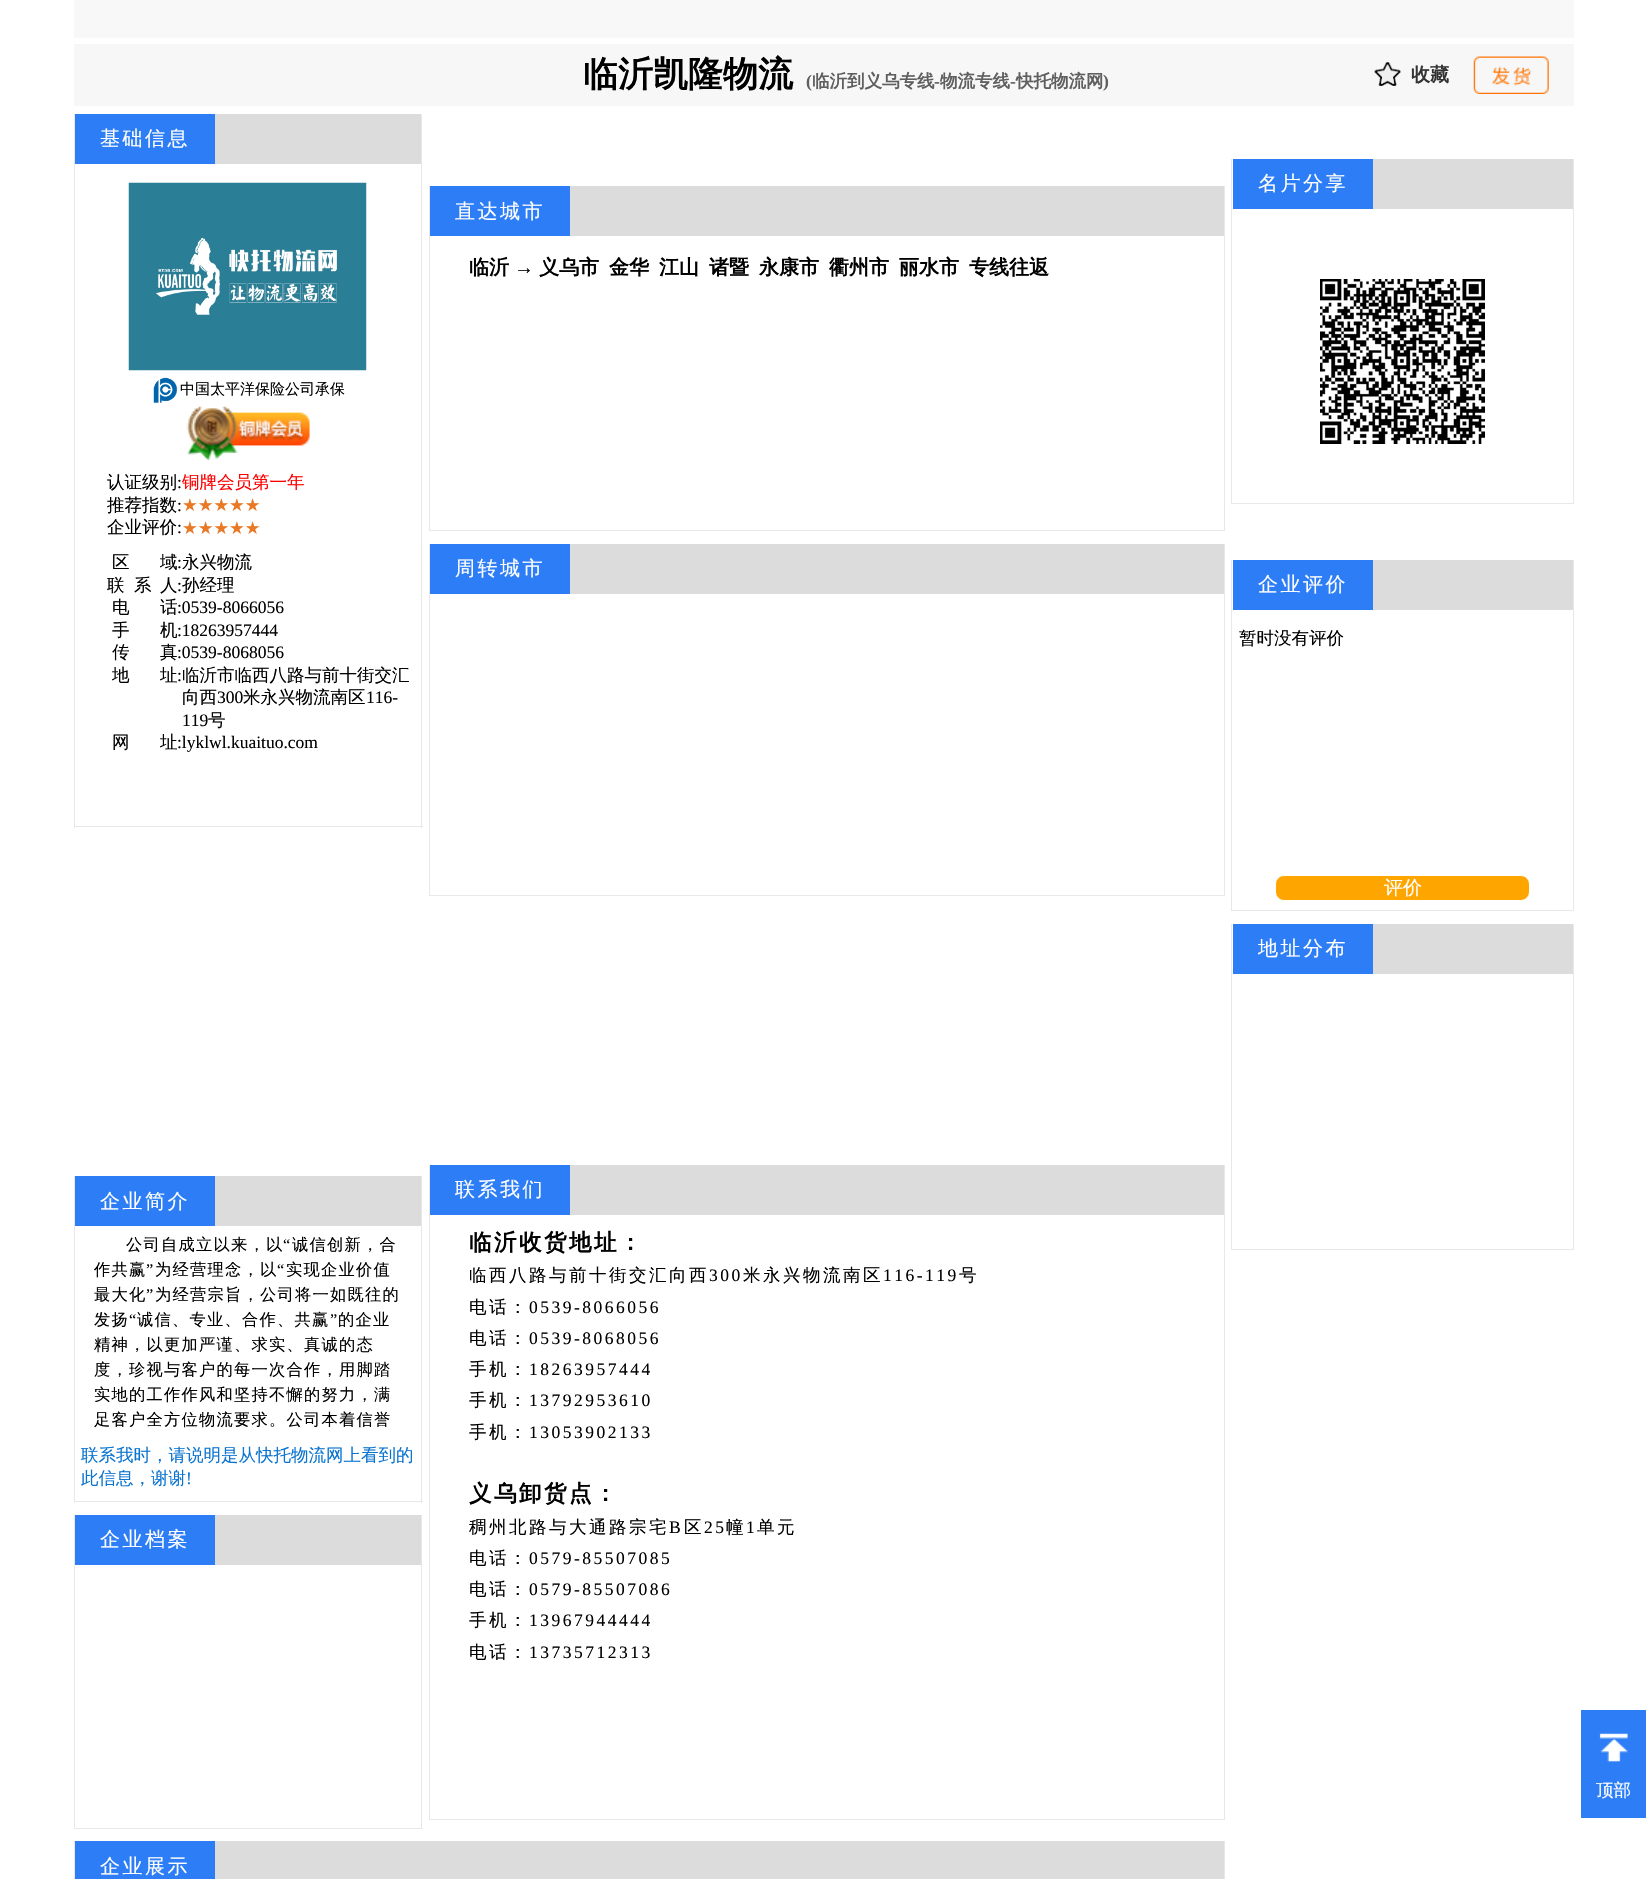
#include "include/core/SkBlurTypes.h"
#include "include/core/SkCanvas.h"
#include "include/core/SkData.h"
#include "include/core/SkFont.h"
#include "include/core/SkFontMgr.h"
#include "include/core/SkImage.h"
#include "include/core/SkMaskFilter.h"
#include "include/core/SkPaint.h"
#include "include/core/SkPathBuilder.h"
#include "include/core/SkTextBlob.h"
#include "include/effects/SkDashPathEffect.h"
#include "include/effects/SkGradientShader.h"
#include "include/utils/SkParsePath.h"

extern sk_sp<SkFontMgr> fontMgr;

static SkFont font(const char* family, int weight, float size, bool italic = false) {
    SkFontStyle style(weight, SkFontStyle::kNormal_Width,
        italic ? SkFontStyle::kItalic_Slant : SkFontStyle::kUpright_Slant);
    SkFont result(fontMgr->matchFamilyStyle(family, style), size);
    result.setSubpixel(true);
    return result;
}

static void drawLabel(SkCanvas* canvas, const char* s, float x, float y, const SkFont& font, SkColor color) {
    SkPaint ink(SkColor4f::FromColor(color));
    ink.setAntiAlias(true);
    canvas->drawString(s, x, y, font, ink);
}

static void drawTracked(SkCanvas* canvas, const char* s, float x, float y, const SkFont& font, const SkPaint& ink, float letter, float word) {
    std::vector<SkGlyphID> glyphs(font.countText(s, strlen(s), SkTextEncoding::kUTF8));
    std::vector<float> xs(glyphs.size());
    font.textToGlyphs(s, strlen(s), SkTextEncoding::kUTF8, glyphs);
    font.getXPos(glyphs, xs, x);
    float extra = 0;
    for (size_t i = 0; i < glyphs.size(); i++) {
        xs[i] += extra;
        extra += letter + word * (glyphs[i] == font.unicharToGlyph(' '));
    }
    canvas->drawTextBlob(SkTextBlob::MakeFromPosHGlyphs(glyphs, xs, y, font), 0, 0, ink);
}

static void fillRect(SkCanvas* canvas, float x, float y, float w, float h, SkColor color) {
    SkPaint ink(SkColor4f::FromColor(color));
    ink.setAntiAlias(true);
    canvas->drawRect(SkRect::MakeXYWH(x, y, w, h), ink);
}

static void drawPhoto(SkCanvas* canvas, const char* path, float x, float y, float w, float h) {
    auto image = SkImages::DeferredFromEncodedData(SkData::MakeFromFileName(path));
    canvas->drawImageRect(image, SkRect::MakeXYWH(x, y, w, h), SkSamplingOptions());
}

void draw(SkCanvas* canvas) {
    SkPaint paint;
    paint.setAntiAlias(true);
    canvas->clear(0xFFFFFFFF);
    fillRect(canvas, 74, 0, 1500, 38, 0xFFF8F8F8);
    fillRect(canvas, 74, 44, 1500, 62, 0xFFF7F7F7);
    SkFont font1 = font("WenQuanYi Zen Hei", 700, 35);
    drawLabel(canvas, "临沂凯隆物流", 583, 86, font1, 0xFF000000);
    SkFont font2 = font("Liberation Serif", 700, 17.5f);
    drawLabel(canvas, "(", 806, 87, font2, 0xFF5F5F5F);
    SkFont font3 = font("WenQuanYi Zen Hei", 700, 17.5f);
    drawLabel(canvas, "临沂到义乌专线", 812, 87, font3, 0xFF5F5F5F);
    drawLabel(canvas, "-", 934, 87, font2, 0xFF5F5F5F);
    drawLabel(canvas, "物流专线", 940, 87, font3, 0xFF5F5F5F);
    drawLabel(canvas, "-", 1010, 87, font2, 0xFF5F5F5F);
    drawLabel(canvas, "快托物流网", 1016, 87, font3, 0xFF5F5F5F);
    drawLabel(canvas, ")", 1103, 87, font2, 0xFF5F5F5F);
    drawPhoto(canvas, "assets/img1.png", 1374, 62, 27, 24);
    SkFont font4 = font("WenQuanYi Zen Hei", 700, 19);
    drawLabel(canvas, "收藏", 1411, 81, font4, 0xFF333333);
    drawPhoto(canvas, "assets/img2.png", 1473, 56, 76, 38);
    fillRect(canvas, 421, 114, 1, 714, 0xFFE8E8E8);
    fillRect(canvas, 74, 826, 349, 1, 0xFFE8E8E8);
    fillRect(canvas, 74, 114, 1, 714, 0xFFE8E8E8);
    fillRect(canvas, 215, 114, 206, 50, 0xFFDCDCDC);
    fillRect(canvas, 75, 114, 140, 50, 0xFF2C7DF6);
    SkFont font5 = font("WenQuanYi Zen Hei", 500, 20);
    paint.setColor(0xFFFFFFFF);
    drawTracked(canvas, "基础信息", 100, 145, font5, paint, 2.5f, 0);
    drawPhoto(canvas, "assets/img3.png", 128, 182, 239, 189);
    drawPhoto(canvas, "assets/img4.png", 153, 377, 24, 26);
    SkFont font6 = font("WenQuanYi Zen Hei", 500, 15);
    drawLabel(canvas, "中国太平洋保险公司承保", 180, 394, font6, 0xFF000000);
    drawPhoto(canvas, "assets/img5.png", 186, 406, 124, 55);
    SkFont font7 = font("WenQuanYi Zen Hei", 500, 17.5f);
    drawLabel(canvas, "认证级别", 107, 488, font7, 0xFF000000);
    SkFont font8 = font("Liberation Serif", 400, 17.5f);
    drawLabel(canvas, ":", 177, 488, font8, 0xFF000000);
    drawLabel(canvas, "铜牌会员第一年", 182, 488, font7, 0xFFFF0000);
    drawLabel(canvas, "推荐指数", 107, 511, font7, 0xFF000000);
    drawLabel(canvas, ":", 177, 511, font8, 0xFF000000);
    SkFont font9 = font("DejaVu Sans", 400, 17.5f);
    drawLabel(canvas, "★★★★★", 182, 511, font9, 0xFFEA7926);
    drawLabel(canvas, "企业评价", 107, 533, font7, 0xFF000000);
    drawLabel(canvas, ":", 177, 533, font8, 0xFF000000);
    drawLabel(canvas, "★★★★★", 182, 534, font9, 0xFFEA7926);
    drawLabel(canvas, "区", 112, 568, font7, 0xFF000000);
    drawLabel(canvas, "域", 160, 568, font7, 0xFF000000);
    drawLabel(canvas, ":", 177, 568, font8, 0xFF000000);
    drawLabel(canvas, "永兴物流", 182, 568, font7, 0xFF000000);
    drawLabel(canvas, "联", 107, 591, font7, 0xFF000000);
    drawLabel(canvas, "系", 134, 591, font7, 0xFF000000);
    drawLabel(canvas, "人", 160, 591, font7, 0xFF000000);
    drawLabel(canvas, ":", 177, 591, font8, 0xFF000000);
    drawLabel(canvas, "孙经理", 182, 591, font7, 0xFF000000);
    drawLabel(canvas, "电", 112, 613, font7, 0xFF000000);
    drawLabel(canvas, "话", 160, 613, font7, 0xFF000000);
    drawLabel(canvas, ":0539-8066056", 177, 613, font8, 0xFF000000);
    drawLabel(canvas, "手", 112, 636, font7, 0xFF000000);
    drawLabel(canvas, "机", 160, 636, font7, 0xFF000000);
    drawLabel(canvas, ":18263957444", 177, 636, font8, 0xFF000000);
    drawLabel(canvas, "传", 112, 658, font7, 0xFF000000);
    drawLabel(canvas, "真", 160, 658, font7, 0xFF000000);
    drawLabel(canvas, ":0539-8068056", 177, 658, font8, 0xFF000000);
    drawLabel(canvas, "地", 112, 681, font7, 0xFF000000);
    drawLabel(canvas, "址", 160, 681, font7, 0xFF000000);
    drawLabel(canvas, ":", 177, 681, font8, 0xFF000000);
    drawLabel(canvas, "临沂市临西八路与前十街交汇", 182, 681, font7, 0xFF000000);
    drawLabel(canvas, "向西", 182, 703, font7, 0xFF000000);
    drawLabel(canvas, "300", 217, 703, font8, 0xFF000000);
    drawLabel(canvas, "米永兴物流南区", 243, 703, font7, 0xFF000000);
    drawLabel(canvas, "116-", 366, 703, font8, 0xFF000000);
    drawLabel(canvas, "119", 182, 726, font8, 0xFF000000);
    drawLabel(canvas, "号", 208, 726, font7, 0xFF000000);
    drawLabel(canvas, "网", 112, 748, font7, 0xFF000000);
    drawLabel(canvas, "址", 160, 748, font7, 0xFF000000);
    drawLabel(canvas, ":lyklwl.kuaituo.com", 177, 748, font8, 0xFF000000);
    fillRect(canvas, 1573, 159, 1, 345, 0xFFE8E8E8);
    fillRect(canvas, 1231, 503, 343, 1, 0xFFE8E8E8);
    fillRect(canvas, 1231, 159, 1, 345, 0xFFE8E8E8);
    fillRect(canvas, 1373, 159, 200, 50, 0xFFDCDCDC);
    fillRect(canvas, 1233, 159, 140, 50, 0xFF2C7DF6);
    drawTracked(canvas, "名片分享", 1258, 190, font5, paint, 2.5f, 0);
    drawPhoto(canvas, "assets/img6.png", 1320, 279, 165, 165);
    fillRect(canvas, 1224, 186, 1, 345, 0xFFE8E8E8);
    fillRect(canvas, 429, 530, 796, 1, 0xFFE8E8E8);
    fillRect(canvas, 429, 186, 1, 345, 0xFFE8E8E8);
    fillRect(canvas, 570, 186, 654, 50, 0xFFDCDCDC);
    fillRect(canvas, 430, 186, 140, 50, 0xFF2C7DF6);
    drawTracked(canvas, "直达城市", 455, 218, font5, paint, 2.5f, 0);
    SkFont font10 = font("WenQuanYi Zen Hei", 700, 20);
    drawLabel(canvas, "临沂", 469, 274, font10, 0xFF000000);
    SkFont font11 = font("Liberation Serif", 700, 20);
    drawLabel(canvas, "→", 514, 274, font11, 0xFF000000);
    drawLabel(canvas, "义乌市", 539, 274, font10, 0xFF000000);
    drawLabel(canvas, "金华", 609, 274, font10, 0xFF000000);
    drawLabel(canvas, "江山", 659, 274, font10, 0xFF000000);
    drawLabel(canvas, "诸暨", 709, 274, font10, 0xFF000000);
    drawLabel(canvas, "永康市", 759, 274, font10, 0xFF000000);
    drawLabel(canvas, "衢州市", 829, 274, font10, 0xFF000000);
    drawLabel(canvas, "丽水市", 899, 274, font10, 0xFF000000);
    drawLabel(canvas, "专线往返", 969, 274, font10, 0xFF000000);
    fillRect(canvas, 1224, 544, 1, 352, 0xFFE8E8E8);
    fillRect(canvas, 429, 895, 796, 1, 0xFFE8E8E8);
    fillRect(canvas, 429, 544, 1, 352, 0xFFE8E8E8);
    fillRect(canvas, 570, 544, 654, 50, 0xFFDCDCDC);
    fillRect(canvas, 430, 544, 140, 50, 0xFF2C7DF6);
    drawTracked(canvas, "周转城市", 455, 575, font5, paint, 2.5f, 0);
    fillRect(canvas, 1573, 560, 1, 351, 0xFFE8E8E8);
    fillRect(canvas, 1231, 910, 343, 1, 0xFFE8E8E8);
    fillRect(canvas, 1231, 560, 1, 351, 0xFFE8E8E8);
    fillRect(canvas, 1373, 560, 200, 50, 0xFFDCDCDC);
    fillRect(canvas, 1233, 560, 140, 50, 0xFF2C7DF6);
    drawTracked(canvas, "企业评价", 1258, 591, font5, paint, 2.5f, 0);
    drawLabel(canvas, "暂时没有评价", 1239, 644, font7, 0xFF000000);
    paint.setColor(0xFFFFA500);
    canvas->drawRoundRect(SkRect::MakeXYWH(1275.5f, 875.5f, 254, 25), 8.5f, 8.5f, paint);
    paint.setStroke(true);
    paint.setStrokeWidth(1);
    paint.setColor(0xFFFFFFFF);
    canvas->drawRoundRect(SkRect::MakeXYWH(1275.5f, 875.5f, 254, 25), 8.5f, 8.5f, paint);
    SkFont font12 = font("WenQuanYi Zen Hei", 500, 19);
    drawLabel(canvas, "评价", 1384, 894, font12, 0xFFFFFFFF);
    fillRect(canvas, 1573, 924, 1, 326, 0xFFE8E8E8);
    fillRect(canvas, 1231, 1249, 343, 1, 0xFFE8E8E8);
    fillRect(canvas, 1231, 924, 1, 326, 0xFFE8E8E8);
    fillRect(canvas, 1373, 924, 200, 50, 0xFFDCDCDC);
    fillRect(canvas, 1233, 924, 140, 50, 0xFF2C7DF6);
    paint.setStroke(false);
    drawTracked(canvas, "地址分布", 1258, 955, font5, paint, 2.5f, 0);
    fillRect(canvas, 421, 1176, 1, 327, 0xFFE8E8E8);
    fillRect(canvas, 74, 1501, 349, 1, 0xFFE8E8E8);
    fillRect(canvas, 74, 1176, 1, 327, 0xFFE8E8E8);
    fillRect(canvas, 215, 1176, 206, 50, 0xFFDCDCDC);
    fillRect(canvas, 75, 1176, 140, 50, 0xFF2C7DF6);
    drawTracked(canvas, "企业简介", 100, 1208, font5, paint, 2.5f, 0);
    SkFont font13 = font("WenQuanYi Zen Hei", 500, 16.25f);
    paint.setColor(0xFF000000);
    drawTracked(canvas, "公司自成立以来，以", 126, 1250, font13, paint, 1.25f, 0);
    SkFont font14 = font("Liberation Serif", 400, 16.25f);
    drawTracked(canvas, "“", 283, 1250, font14, paint, 1.25f, 0);
    drawTracked(canvas, "诚信创新，合", 292, 1250, font13, paint, 1.25f, 0);
    drawTracked(canvas, "作共赢", 94, 1275, font13, paint, 1.25f, 0);
    drawTracked(canvas, "”", 146, 1275, font14, paint, 1.25f, 0);
    drawTracked(canvas, "为经营理念，以", 155, 1275, font13, paint, 1.25f, 0);
    drawTracked(canvas, "“", 277, 1275, font14, paint, 1.25f, 0);
    drawTracked(canvas, "实现企业价值", 286, 1275, font13, paint, 1.25f, 0);
    drawTracked(canvas, "最大化", 94, 1300, font13, paint, 1.25f, 0);
    drawTracked(canvas, "”", 146, 1300, font14, paint, 1.25f, 0);
    drawTracked(canvas, "为经营宗旨，公司将一如既往的", 155, 1300, font13, paint, 1.25f, 0);
    drawTracked(canvas, "发扬", 94, 1325, font13, paint, 1.25f, 0);
    drawTracked(canvas, "“", 129, 1325, font14, paint, 1.25f, 0);
    drawTracked(canvas, "诚信、专业、合作、共赢", 137, 1325, font13, paint, 1.25f, 0);
    drawTracked(canvas, "”", 330, 1325, font14, paint, 1.25f, 0);
    drawTracked(canvas, "的企业", 338, 1325, font13, paint, 1.25f, 0);
    drawTracked(canvas, "精神，以更加严谨、求实、真诚的态", 94, 1350, font13, paint, 1.25f, 0);
    drawTracked(canvas, "度，珍视与客户的每一次合作，用脚踏", 94, 1375, font13, paint, 1.25f, 0);
    drawTracked(canvas, "实地的工作作风和坚持不懈的努力，满", 94, 1400, font13, paint, 1.25f, 0);
    drawTracked(canvas, "足客户全方位物流要求。公司本着信誉", 94, 1425, font13, paint, 1.25f, 0);
    drawLabel(canvas, "联系我时，请说明是从快托物流网上看到的", 81, 1461, font7, 0xFF0B74D0);
    drawLabel(canvas, "此信息，谢谢", 81, 1484, font7, 0xFF0B74D0);
    drawLabel(canvas, "!", 186, 1484, font8, 0xFF0B74D0);
    fillRect(canvas, 1224, 1165, 1, 655, 0xFFE8E8E8);
    fillRect(canvas, 429, 1819, 796, 1, 0xFFE8E8E8);
    fillRect(canvas, 429, 1165, 1, 655, 0xFFE8E8E8);
    fillRect(canvas, 570, 1165, 654, 50, 0xFFDCDCDC);
    fillRect(canvas, 430, 1165, 140, 50, 0xFF2C7DF6);
    paint.setColor(0xFFFFFFFF);
    drawTracked(canvas, "联系我们", 455, 1196, font5, paint, 2.5f, 0);
    SkFont font15 = font("WenQuanYi Zen Hei", 700, 22.5f);
    paint.setColor(0xFF000000);
    drawTracked(canvas, "临沂收货地址：", 469, 1250, font15, paint, 2.5f, 0);
    drawTracked(canvas, "临西八路与前十街交汇向西", 469, 1281, font7, paint, 2.5f, 0);
    drawTracked(canvas, "300", 709, 1281, font8, paint, 2.5f, 0);
    drawTracked(canvas, "米永兴物流南区", 743, 1281, font7, paint, 2.5f, 0);
    drawTracked(canvas, "116-119", 883, 1281, font8, paint, 2.5f, 0);
    drawTracked(canvas, "号", 959, 1281, font7, paint, 2.5f, 0);
    drawTracked(canvas, "电话：", 469, 1313, font7, paint, 2.5f, 0);
    drawTracked(canvas, "0539-8066056", 529, 1313, font8, paint, 2.5f, 0);
    drawTracked(canvas, "电话：", 469, 1344, font7, paint, 2.5f, 0);
    drawTracked(canvas, "0539-8068056", 529, 1344, font8, paint, 2.5f, 0);
    drawTracked(canvas, "手机：", 469, 1375, font7, paint, 2.5f, 0);
    drawTracked(canvas, "18263957444", 529, 1375, font8, paint, 2.5f, 0);
    drawTracked(canvas, "手机：", 469, 1406, font7, paint, 2.5f, 0);
    drawTracked(canvas, "13792953610", 529, 1406, font8, paint, 2.5f, 0);
    drawTracked(canvas, "手机：", 469, 1438, font7, paint, 2.5f, 0);
    drawTracked(canvas, "13053902133", 529, 1438, font8, paint, 2.5f, 0);
    drawTracked(canvas, "义乌卸货点：", 469, 1501, font15, paint, 2.5f, 0);
    drawTracked(canvas, "稠州北路与大通路宗宅", 469, 1533, font7, paint, 2.5f, 0);
    drawTracked(canvas, "B", 669, 1533, font8, paint, 2.5f, 0);
    drawTracked(canvas, "区", 684, 1533, font7, paint, 2.5f, 0);
    drawTracked(canvas, "25", 704, 1533, font8, paint, 2.5f, 0);
    drawTracked(canvas, "幢", 726, 1533, font7, paint, 2.5f, 0);
    drawTracked(canvas, "1", 746, 1533, font8, paint, 2.5f, 0);
    drawTracked(canvas, "单元", 757, 1533, font7, paint, 2.5f, 0);
    drawTracked(canvas, "电话：", 469, 1564, font7, paint, 2.5f, 0);
    drawTracked(canvas, "0579-85507085", 529, 1564, font8, paint, 2.5f, 0);
    drawTracked(canvas, "电话：", 469, 1595, font7, paint, 2.5f, 0);
    drawTracked(canvas, "0579-85507086", 529, 1595, font8, paint, 2.5f, 0);
    drawTracked(canvas, "手机：", 469, 1626, font7, paint, 2.5f, 0);
    drawTracked(canvas, "13967944444", 529, 1626, font8, paint, 2.5f, 0);
    drawTracked(canvas, "电话：", 469, 1658, font7, paint, 2.5f, 0);
    drawTracked(canvas, "13735712313", 529, 1658, font8, paint, 2.5f, 0);
    fillRect(canvas, 421, 1515, 1, 314, 0xFFE8E8E8);
    fillRect(canvas, 74, 1828, 349, 1, 0xFFE8E8E8);
    fillRect(canvas, 74, 1515, 1, 314, 0xFFE8E8E8);
    fillRect(canvas, 215, 1515, 206, 50, 0xFFDCDCDC);
    fillRect(canvas, 75, 1515, 140, 50, 0xFF2C7DF6);
    paint.setColor(0xFFFFFFFF);
    drawTracked(canvas, "企业档案", 100, 1546, font5, paint, 2.5f, 0);
    fillRect(canvas, 1224, 1841, 1, 38, 0xFFE8E8E8);
    fillRect(canvas, 74, 1841, 1, 38, 0xFFE8E8E8);
    fillRect(canvas, 215, 1841, 1009, 38, 0xFFDCDCDC);
    fillRect(canvas, 75, 1841, 140, 38, 0xFF2C7DF6);
    drawTracked(canvas, "企业展示", 100, 1873, font5, paint, 2.5f, 0);
    fillRect(canvas, 1581, 1710, 65, 108, 0xFF2C7DF6);
    drawPhoto(canvas, "assets/img7.png", 1599, 1733, 29, 29);
    drawLabel(canvas, "顶部", 1596, 1796, font7, 0xFFFFFFFF);
}
